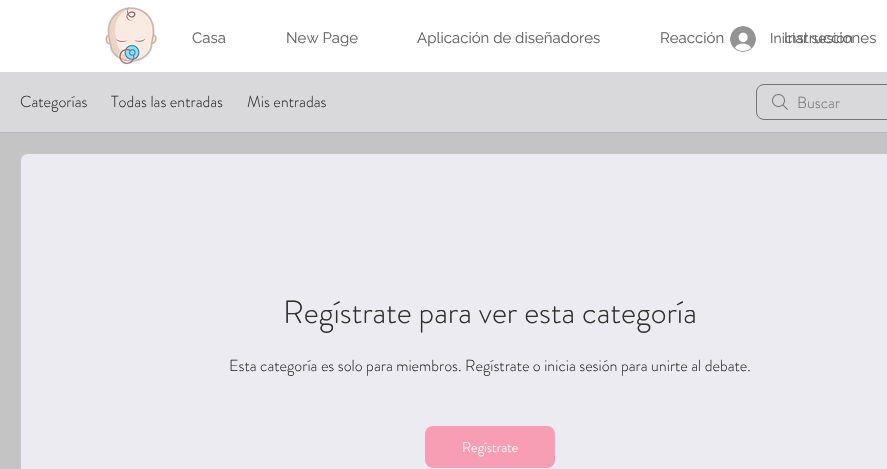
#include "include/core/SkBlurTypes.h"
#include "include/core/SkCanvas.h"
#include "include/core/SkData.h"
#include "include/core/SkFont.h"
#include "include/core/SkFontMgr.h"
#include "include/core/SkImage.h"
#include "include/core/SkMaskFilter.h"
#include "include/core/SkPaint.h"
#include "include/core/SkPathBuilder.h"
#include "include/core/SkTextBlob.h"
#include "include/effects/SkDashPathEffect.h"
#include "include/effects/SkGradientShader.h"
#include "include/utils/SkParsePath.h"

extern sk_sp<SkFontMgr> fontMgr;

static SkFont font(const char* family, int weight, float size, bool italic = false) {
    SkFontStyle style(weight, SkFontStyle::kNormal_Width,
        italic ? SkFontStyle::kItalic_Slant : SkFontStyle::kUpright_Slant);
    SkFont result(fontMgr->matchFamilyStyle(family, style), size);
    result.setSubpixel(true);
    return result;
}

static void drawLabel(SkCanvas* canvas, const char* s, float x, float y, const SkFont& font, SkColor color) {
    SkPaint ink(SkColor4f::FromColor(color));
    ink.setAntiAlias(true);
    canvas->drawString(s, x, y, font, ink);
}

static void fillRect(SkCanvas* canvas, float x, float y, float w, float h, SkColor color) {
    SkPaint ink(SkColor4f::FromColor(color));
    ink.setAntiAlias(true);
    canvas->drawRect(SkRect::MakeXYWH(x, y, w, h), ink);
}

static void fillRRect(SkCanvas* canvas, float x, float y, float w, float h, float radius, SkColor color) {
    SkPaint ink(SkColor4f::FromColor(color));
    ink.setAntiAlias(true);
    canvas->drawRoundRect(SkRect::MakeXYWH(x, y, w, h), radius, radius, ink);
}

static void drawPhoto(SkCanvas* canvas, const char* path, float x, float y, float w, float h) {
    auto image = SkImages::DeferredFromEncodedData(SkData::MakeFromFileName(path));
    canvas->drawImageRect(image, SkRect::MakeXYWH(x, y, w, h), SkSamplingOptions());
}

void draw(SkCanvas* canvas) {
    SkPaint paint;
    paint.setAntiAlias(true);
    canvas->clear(0xFFFFFFFF);
    drawPhoto(canvas, "assets/img1.png", 105, 7, 52, 58);
    SkFont font1 = font("Raleway", 400, 15);
    drawLabel(canvas, "Casa", 192, 43, font1, 0xFF626262);
    drawLabel(canvas, "New Page", 286, 43, font1, 0xFF626262);
    drawLabel(canvas, "Aplicación de diseñadores", 417, 43, font1, 0xFF626262);
    drawLabel(canvas, "Reacción", 660, 43, font1, 0xFF626262);
    drawLabel(canvas, "Instrucciones", 784, 43, font1, 0xFF626262);
    drawPhoto(canvas, "assets/img2.png", 730, 26, 26, 26);
    SkFont font2 = font("Raleway", 400, 14);
    drawLabel(canvas, "Iniciar sesión", 770, 43, font2, 0xFF626262);
    fillRect(canvas, 0, 133, 887, 336, 0xFFC4C4C4);
    fillRect(canvas, 0, 72, 887, 60, 0xFFD9D8DB);
    fillRect(canvas, 0, 132, 887, 1, 0xFFB7B6B9);
    SkFont font3 = font("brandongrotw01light", 300, 16);
    drawLabel(canvas, "Categorías", 20, 107, font3, 0xFF2F2F30);
    drawLabel(canvas, "Todas las entradas", 111, 107, font3, 0xFF2F2F30);
    drawLabel(canvas, "Mis entradas", 247, 107, font3, 0xFF2F2F30);
    drawPhoto(canvas, "assets/img3.png", 772, 94, 16, 16);
    paint.setStroke(true);
    paint.setStrokeWidth(1);
    paint.setColor(0xFF747475);
    canvas->drawRoundRect(SkRect::MakeXYWH(756.5f, 84.5f, 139, 35), 7.5f, 7.5f, paint);
    drawLabel(canvas, "Buscar", 797, 108, font3, 0xFF747475);
    fillRRect(canvas, 20, 153, 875, 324, 8, 0xFFEDEBF2);
    paint.setColor(0x332F2F30);
    canvas->drawRoundRect(SkRect::MakeXYWH(20.5f, 153.5f, 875, 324), 7.5f, 7.5f, paint);
    SkFont font4 = font("brandongrotw01light", 300, 32);
    drawLabel(canvas, "Regístrate para ver esta categoría", 283, 323, font4, 0xFF2F2F30);
    drawLabel(canvas, "Esta categoría es solo para miembros. Regístrate o inicia sesión para unirte al debate.", 229, 371, font3, 0xFF2F2F30);
    fillRRect(canvas, 425, 426, 130, 42, 8, 0xFFF79EB5);
    SkFont font5 = font("brandongrotw01light", 300, 14);
    drawLabel(canvas, "Regístrate", 462, 452, font5, 0xFFFFFFFF);
}
